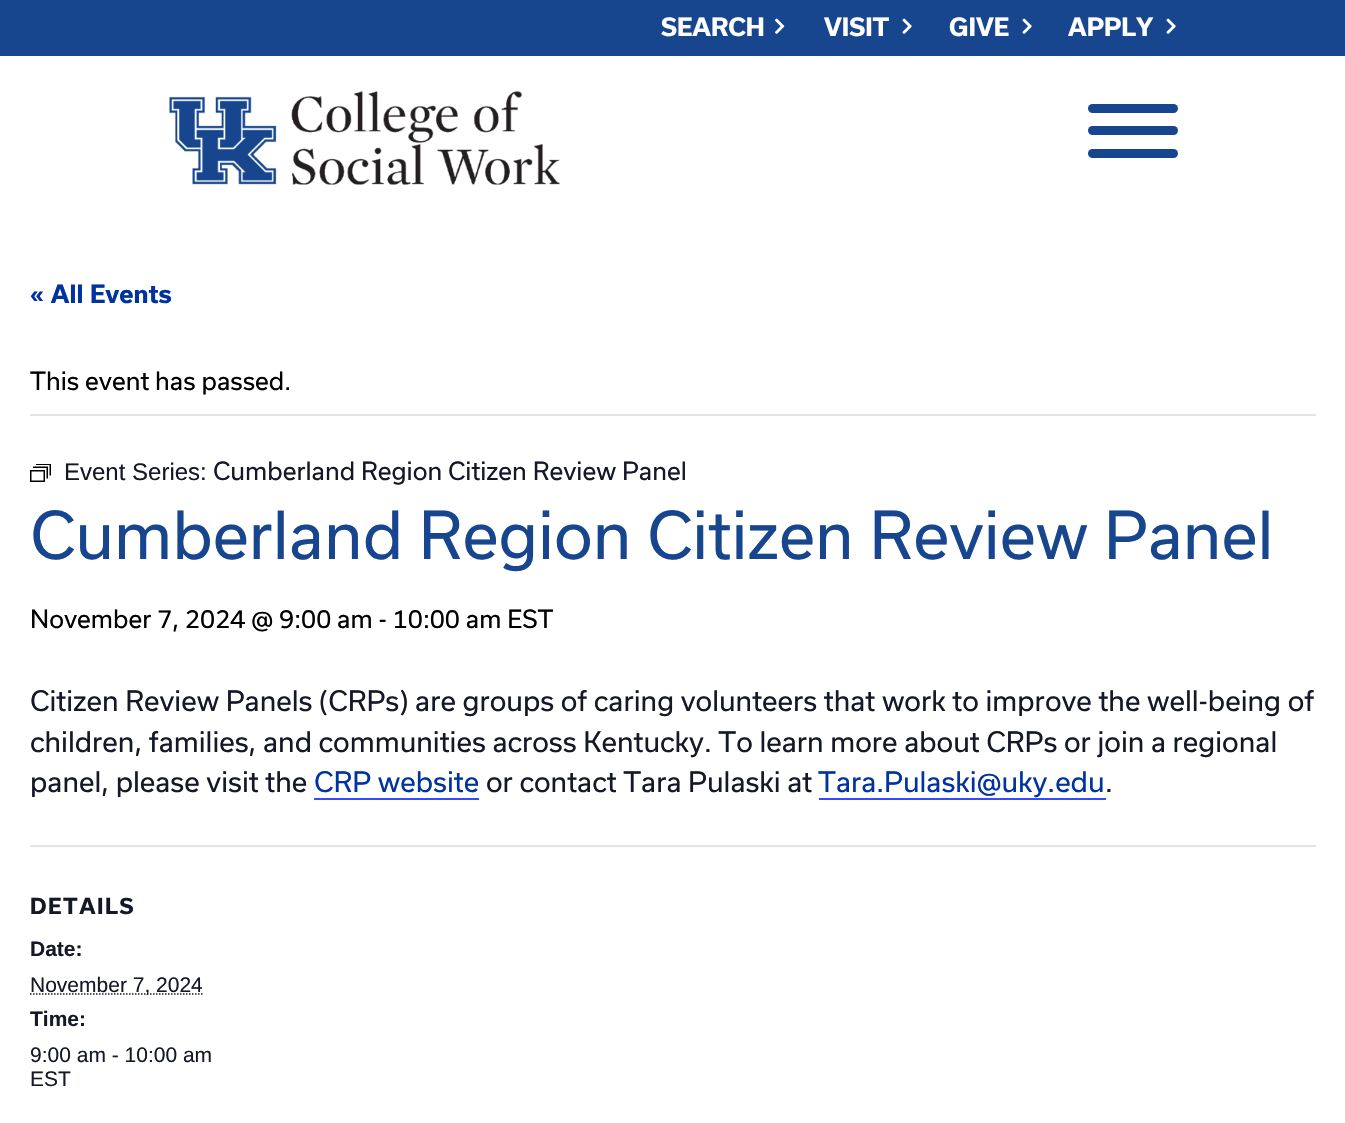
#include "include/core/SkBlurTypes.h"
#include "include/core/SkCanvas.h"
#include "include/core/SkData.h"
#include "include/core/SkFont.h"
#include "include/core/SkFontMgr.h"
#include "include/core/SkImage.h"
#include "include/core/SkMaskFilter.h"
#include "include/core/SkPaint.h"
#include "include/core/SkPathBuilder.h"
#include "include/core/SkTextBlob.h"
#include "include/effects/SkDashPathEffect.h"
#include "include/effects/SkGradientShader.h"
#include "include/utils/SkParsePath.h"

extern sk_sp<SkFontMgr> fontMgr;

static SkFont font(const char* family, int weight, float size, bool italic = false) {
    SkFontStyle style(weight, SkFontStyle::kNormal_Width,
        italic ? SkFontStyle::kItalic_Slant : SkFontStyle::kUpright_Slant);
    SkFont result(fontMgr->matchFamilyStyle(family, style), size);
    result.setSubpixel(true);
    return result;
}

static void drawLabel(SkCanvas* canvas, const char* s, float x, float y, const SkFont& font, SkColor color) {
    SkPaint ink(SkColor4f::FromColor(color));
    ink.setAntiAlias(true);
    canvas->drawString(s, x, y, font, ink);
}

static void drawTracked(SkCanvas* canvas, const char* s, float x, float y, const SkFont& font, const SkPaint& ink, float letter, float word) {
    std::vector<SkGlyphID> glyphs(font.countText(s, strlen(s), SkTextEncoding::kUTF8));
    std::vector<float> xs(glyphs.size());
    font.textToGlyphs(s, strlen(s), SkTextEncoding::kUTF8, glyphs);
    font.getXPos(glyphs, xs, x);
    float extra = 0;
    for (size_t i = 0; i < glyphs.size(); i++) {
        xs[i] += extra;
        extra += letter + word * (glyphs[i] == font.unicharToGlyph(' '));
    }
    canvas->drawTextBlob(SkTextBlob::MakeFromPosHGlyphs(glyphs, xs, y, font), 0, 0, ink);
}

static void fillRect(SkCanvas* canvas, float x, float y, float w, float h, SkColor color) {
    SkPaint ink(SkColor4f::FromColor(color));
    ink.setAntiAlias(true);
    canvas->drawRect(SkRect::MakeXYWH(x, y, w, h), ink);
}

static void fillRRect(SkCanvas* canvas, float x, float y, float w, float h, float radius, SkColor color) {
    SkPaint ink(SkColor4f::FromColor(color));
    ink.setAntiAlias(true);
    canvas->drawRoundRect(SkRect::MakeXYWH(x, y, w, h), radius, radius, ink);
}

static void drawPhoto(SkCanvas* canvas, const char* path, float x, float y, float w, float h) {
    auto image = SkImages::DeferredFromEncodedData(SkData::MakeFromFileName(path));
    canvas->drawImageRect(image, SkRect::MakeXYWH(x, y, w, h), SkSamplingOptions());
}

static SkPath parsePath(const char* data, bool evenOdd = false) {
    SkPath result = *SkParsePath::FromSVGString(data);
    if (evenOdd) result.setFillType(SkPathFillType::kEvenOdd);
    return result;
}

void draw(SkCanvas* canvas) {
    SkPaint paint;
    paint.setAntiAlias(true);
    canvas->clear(0xFFFFFFFF);
    fillRect(canvas, 0, 0, 1345, 56, 0xFF17468F);
    SkFont font1 = font("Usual", 700, 24);
    drawLabel(canvas, "SEARCH", 661, 36, font1, 0xFFFFFFFF);
    drawPhoto(canvas, "assets/img1.png", 775, 18, 10, 16);
    drawLabel(canvas, "VISIT", 824, 36, font1, 0xFFFFFFFF);
    drawPhoto(canvas, "assets/img2.png", 902, 18, 10, 16);
    drawLabel(canvas, "GIVE", 949, 36, font1, 0xFFFFFFFF);
    drawPhoto(canvas, "assets/img2.png", 1022, 18, 10, 16);
    drawLabel(canvas, "APPLY", 1068, 36, font1, 0xFFFFFFFF);
    drawPhoto(canvas, "assets/img2.png", 1166, 18, 10, 16);
    drawPhoto(canvas, "assets/img3.png", 169, 91, 391, 94);
    fillRRect(canvas, 1088, 104, 90, 9, 4.5f, 0xFF17468F);
    fillRRect(canvas, 1088, 126, 90, 9, 4.5f, 0xFF17468F);
    fillRRect(canvas, 1088, 149, 90, 9, 4.5f, 0xFF17468F);
    drawLabel(canvas, "« All Events", 30, 303, font1, 0xFF0033A0);
    fillRect(canvas, 30, 414, 1286, 2, 0xFFE4E4E4);
    SkFont font2 = font("Usual", 400, 24);
    drawLabel(canvas, "This event has passed.", 30, 390, font2, 0xFF000000);
    drawPhoto(canvas, "assets/img4.png", 30, 464, 21, 18);
    SkFont font3 = font("Liberation Sans", 400, 24);
    drawLabel(canvas, "Event Series:", 64, 480, font3, 0xFF141827);
    drawLabel(canvas, "Cumberland Region Citizen Review Panel", 213, 480, font2, 0xFF141827);
    SkFont font4 = font("Usual", 400, 63);
    drawLabel(canvas, "Cumberland Region Citizen Review Panel", 30, 559, font4, 0xFF17468F);
    drawLabel(canvas, "November 7, 2024 @ 9:00 am - 10:00 am EST", 30, 628, font2, 0xFF000000);
    SkFont font5 = font("Usual", 400, 27);
    drawLabel(canvas, "Citizen Review Panels (CRPs) are groups of caring volunteers that work to improve the well-being of", 30, 711, font5, 0xFF141827);
    drawLabel(canvas, "children, families, and communities across Kentucky. To learn more about CRPs or join a regional", 30, 752, font5, 0xFF141827);
    drawLabel(canvas, "panel, please visit the", 30, 792, font5, 0xFF141827);
    drawLabel(canvas, "CRP website", 314, 792, font5, 0xFF0033A0);
    fillRect(canvas, 314, 798, 165, 2, 0xFF334AFF);
    drawLabel(canvas, "or contact Tara Pulaski at", 486, 792, font5, 0xFF141827);
    drawLabel(canvas, "Tara.Pulaski@uky.edu", 818, 792, font5, 0xFF0033A0);
    fillRect(canvas, 819, 798, 287, 2, 0xFF334AFF);
    drawLabel(canvas, ".", 1105, 792, font5, 0xFF141827);
    fillRect(canvas, 30, 845, 1286, 2, 0xFFE4E4E4);
    SkFont font6 = font("Usual", 700, 21);
    paint.setColor(0xFF141827);
    drawTracked(canvas, "DETAILS", 30, 914, font6, paint, 1.5f, 0);
    SkFont font7 = font("Liberation Sans", 700, 21);
    drawLabel(canvas, "Date:", 30, 956, font7, 0xFF141827);
    paint.setStroke(true);
    paint.setStrokeWidth(1.5f);
    paint.setPathEffect(SkDashPathEffect::Make({{1.5f, 1.5f}}, 0));
    canvas->drawPath(parsePath("M30 994H203"), paint);
    paint.setPathEffect(nullptr);
    SkFont font8 = font("Liberation Sans", 400, 21);
    drawLabel(canvas, "November 7, 2024", 30, 992, font8, 0xFF141827);
    drawLabel(canvas, "Time:", 30, 1026, font7, 0xFF141827);
    drawLabel(canvas, "9:00 am - 10:00 am", 30, 1062, font8, 0xFF141827);
    drawLabel(canvas, "EST", 30, 1086, font8, 0xFF141827);
}
